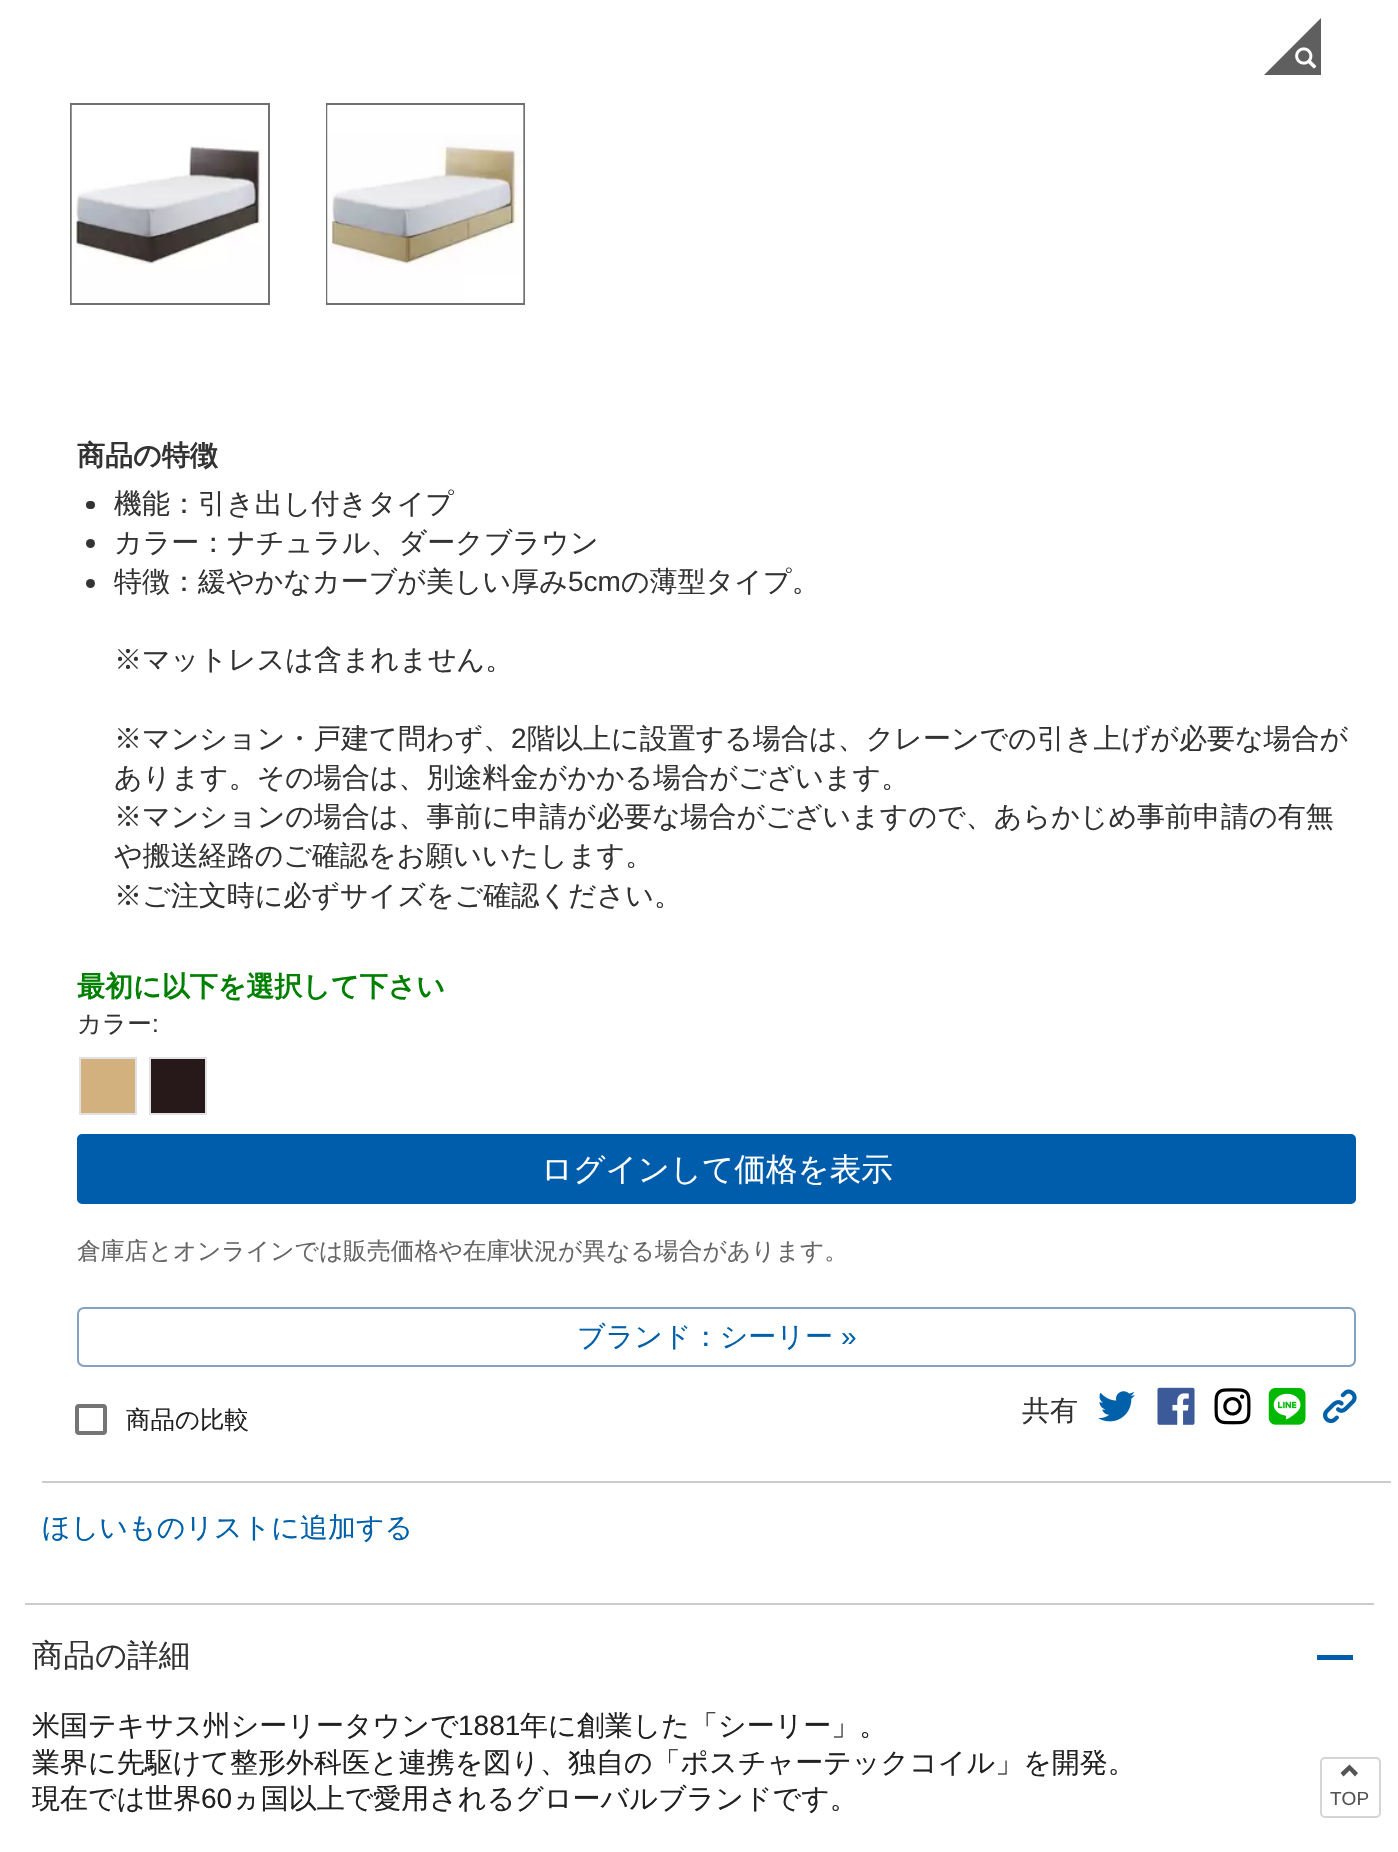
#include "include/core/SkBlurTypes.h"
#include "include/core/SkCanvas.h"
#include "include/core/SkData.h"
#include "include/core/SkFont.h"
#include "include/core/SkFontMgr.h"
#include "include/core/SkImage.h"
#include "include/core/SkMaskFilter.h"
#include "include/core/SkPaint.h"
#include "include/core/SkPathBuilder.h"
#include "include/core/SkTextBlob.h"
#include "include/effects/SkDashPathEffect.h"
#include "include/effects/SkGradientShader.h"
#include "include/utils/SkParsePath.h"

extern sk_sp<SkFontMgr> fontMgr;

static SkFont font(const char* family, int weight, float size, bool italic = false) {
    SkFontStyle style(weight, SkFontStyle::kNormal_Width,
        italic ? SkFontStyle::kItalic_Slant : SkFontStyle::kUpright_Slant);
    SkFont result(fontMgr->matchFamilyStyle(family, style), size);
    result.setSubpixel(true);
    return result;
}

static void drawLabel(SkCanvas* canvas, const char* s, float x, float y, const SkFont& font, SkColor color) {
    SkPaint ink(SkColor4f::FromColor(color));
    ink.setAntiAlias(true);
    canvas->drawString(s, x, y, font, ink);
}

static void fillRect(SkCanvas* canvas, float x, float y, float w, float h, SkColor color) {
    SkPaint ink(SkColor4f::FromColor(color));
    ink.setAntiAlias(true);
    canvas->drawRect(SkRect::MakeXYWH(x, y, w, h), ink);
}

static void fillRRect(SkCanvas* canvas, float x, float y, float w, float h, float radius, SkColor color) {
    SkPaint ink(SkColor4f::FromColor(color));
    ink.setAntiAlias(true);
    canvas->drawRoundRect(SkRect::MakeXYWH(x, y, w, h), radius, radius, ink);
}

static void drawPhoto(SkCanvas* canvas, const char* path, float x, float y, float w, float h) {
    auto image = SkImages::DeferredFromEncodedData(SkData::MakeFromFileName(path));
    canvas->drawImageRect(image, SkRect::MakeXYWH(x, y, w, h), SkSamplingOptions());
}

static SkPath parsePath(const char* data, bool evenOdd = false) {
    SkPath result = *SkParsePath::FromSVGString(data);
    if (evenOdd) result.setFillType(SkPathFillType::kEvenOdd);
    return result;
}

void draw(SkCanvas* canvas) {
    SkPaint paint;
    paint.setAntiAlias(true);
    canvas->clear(0xFFFFFFFF);
    paint.setColor(0xFF5F5F5F);
    canvas->drawPath(parsePath("M1321 75H1264L1321 18Z"), paint);
    drawPhoto(canvas, "assets/img1.png", 1295, 47, 22, 22);
    paint.setStroke(true);
    paint.setStrokeWidth(2);
    paint.setColor(0xFF707070);
    canvas->drawRect(SkRect::MakeXYWH(71, 104, 198, 200), paint);
    drawPhoto(canvas, "assets/img2.png", 71, 105, 192, 198);
    canvas->drawRect(SkRect::MakeXYWH(327, 104, 197, 200), paint);
    drawPhoto(canvas, "assets/img3.png", 327, 105, 197, 198);
    SkFont font1 = font("WenQuanYi Zen Hei", 700, 28);
    drawLabel(canvas, "商品の特徴", 77, 465, font1, 0xFF333333);
    fillRRect(canvas, 86, 501, 9, 8, 4, 0xFF333333);
    SkFont font2 = font("WenQuanYi Zen Hei", 500, 28);
    drawLabel(canvas, "機能：引き出し付きタイプ", 114, 513, font2, 0xFF333333);
    paint.setStroke(false);
    paint.setColor(0xFF333333);
    canvas->drawCircle(90.5f, 543.5f, 4.5f, paint);
    drawLabel(canvas, "カラー：ナチュラル、ダークブラウン", 114, 552, font2, 0xFF333333);
    canvas->drawCircle(90.5f, 583.5f, 4.5f, paint);
    drawLabel(canvas, "特徴：緩やかなカーブが美しい厚み", 114, 591, font2, 0xFF333333);
    SkFont font3 = font("Liberation Sans", 400, 28);
    drawLabel(canvas, "5cm", 568, 591, font3, 0xFF333333);
    drawLabel(canvas, "の薄型タイプ。", 621, 591, font2, 0xFF333333);
    drawLabel(canvas, "※マットレスは含まれません。", 114, 669, font2, 0xFF333333);
    drawLabel(canvas, "※マンション・戸建て問わず、", 114, 748, font2, 0xFF333333);
    drawLabel(canvas, "2", 511, 748, font3, 0xFF333333);
    drawLabel(canvas, "階以上に設置する場合は、クレーンでの引き上げが必要な場合が", 527, 748, font2, 0xFF333333);
    drawLabel(canvas, "あります。その場合は、別途料金がかかる場合がございます。", 114, 787, font2, 0xFF333333);
    drawLabel(canvas, "※マンションの場合は、事前に申請が必要な場合がございますので、あらかじめ事前申請の有無", 114, 826, font2, 0xFF333333);
    drawLabel(canvas, "や搬送経路のご確認をお願いいたします。", 114, 865, font2, 0xFF333333);
    drawLabel(canvas, "※ご注文時に必ずサイズをご確認ください。", 114, 905, font2, 0xFF333333);
    drawLabel(canvas, "最初に以下を選択して下さい", 77, 996, font1, 0xFF008000);
    SkFont font4 = font("WenQuanYi Zen Hei", 500, 24.5f);
    drawLabel(canvas, "カラー", 77, 1032, font4, 0xFF333333);
    SkFont font5 = font("Liberation Sans", 400, 24.5f);
    drawLabel(canvas, ":", 152, 1032, font5, 0xFF333333);
    paint.setColor(0xFFD3B17E);
    canvas->drawRect(SkRect::MakeXYWH(80, 1058, 56, 56), paint);
    paint.setStroke(true);
    paint.setColor(0xFFE1E1E1);
    canvas->drawRect(SkRect::MakeXYWH(80, 1058, 56, 56), paint);
    paint.setStroke(false);
    paint.setColor(0xFF27181A);
    canvas->drawRect(SkRect::MakeXYWH(150, 1058, 56, 56), paint);
    paint.setStroke(true);
    paint.setColor(0xFFE1E1E1);
    canvas->drawRect(SkRect::MakeXYWH(150, 1058, 56, 56), paint);
    paint.setStroke(false);
    paint.setColor(0xFF005DAB);
    canvas->drawRoundRect(SkRect::MakeXYWH(78, 1135, 1277, 68), 4, 4, paint);
    paint.setStroke(true);
    canvas->drawRoundRect(SkRect::MakeXYWH(78, 1135, 1277, 68), 4, 4, paint);
    SkFont font6 = font("WenQuanYi Zen Hei", 500, 31.5f);
    drawLabel(canvas, "ログインして価格を表示", 541, 1180, font6, 0xFFFFFFFF);
    SkFont font7 = font("WenQuanYi Zen Hei", 500, 23.8f);
    drawLabel(canvas, "倉庫店とオンラインでは販売価格や在庫状況が異なる場合があります。", 77, 1259, font7, 0xFF666666);
    paint.setColor(0xFF82A2BF);
    canvas->drawRoundRect(SkRect::MakeXYWH(78, 1308, 1277, 58), 6, 6, paint);
    drawLabel(canvas, "ブランド：シーリー", 577, 1346, font2, 0xFF0060A9);
    drawLabel(canvas, "»", 841, 1346, font3, 0xFF0060A9);
    paint.setStrokeWidth(4);
    paint.setColor(0xFF757575);
    canvas->drawRoundRect(SkRect::MakeXYWH(77, 1406, 28, 27), 2, 2, paint);
    drawLabel(canvas, "商品の比較", 126, 1428, font4, 0xFF212121);
    drawLabel(canvas, "共有", 1022, 1420, font2, 0xFF333333);
    drawPhoto(canvas, "assets/img4.png", 1098, 1391, 37, 31);
    drawPhoto(canvas, "assets/img5.png", 1157, 1387, 38, 38);
    drawPhoto(canvas, "assets/img6.png", 1214, 1388, 37, 37);
    drawPhoto(canvas, "assets/img7.png", 1268, 1387, 38, 38);
    drawPhoto(canvas, "assets/img8.png", 1323, 1389, 34, 35);
    fillRect(canvas, 42, 1481, 1349, 2, 0xFFCCCCCC);
    drawLabel(canvas, "ほしいものリストに追加する", 42, 1537, font2, 0xFF0060A9);
    fillRect(canvas, 25, 1603, 1349, 2, 0xFFCCCCCC);
    drawLabel(canvas, "商品の詳細", 32, 1666, font6, 0xFF333333);
    fillRect(canvas, 1317, 1655, 36, 5, 0xFF005DAB);
    drawLabel(canvas, "米国テキサス州シーリータウンで", 32, 1735, font2, 0xFF212121);
    drawLabel(canvas, "1881", 458, 1735, font3, 0xFF212121);
    drawLabel(canvas, "年に創業した「シーリー」。", 520, 1735, font2, 0xFF212121);
    drawLabel(canvas, "業界に先駆けて整形外科医と連携を図り、独自の「ポスチャーテックコイル」を開発。", 32, 1772, font2, 0xFF212121);
    drawLabel(canvas, "現在では世界", 32, 1808, font2, 0xFF212121);
    drawLabel(canvas, "60", 201, 1808, font3, 0xFF212121);
    drawLabel(canvas, "ヵ国以上で愛用されるグローバルブランドです。", 232, 1808, font2, 0xFF212121);
    paint.setStrokeWidth(2);
    paint.setColor(0xFFD5D5D5);
    canvas->drawRoundRect(SkRect::MakeXYWH(1321, 1758, 59, 59), 4, 4, paint);
    paint.setStroke(false);
    paint.setColor(0xFF545454);
    canvas->drawPath(parsePath("M1358 1773L1355 1776.5L1349.5 1770.5L1343.5 1776.5L1340.5 1773L1349.5 1764.5Z"), paint);
    SkFont font8 = font("Liberation Sans", 400, 19);
    drawLabel(canvas, "TOP", 1330, 1805, font8, 0xFF545454);
}
